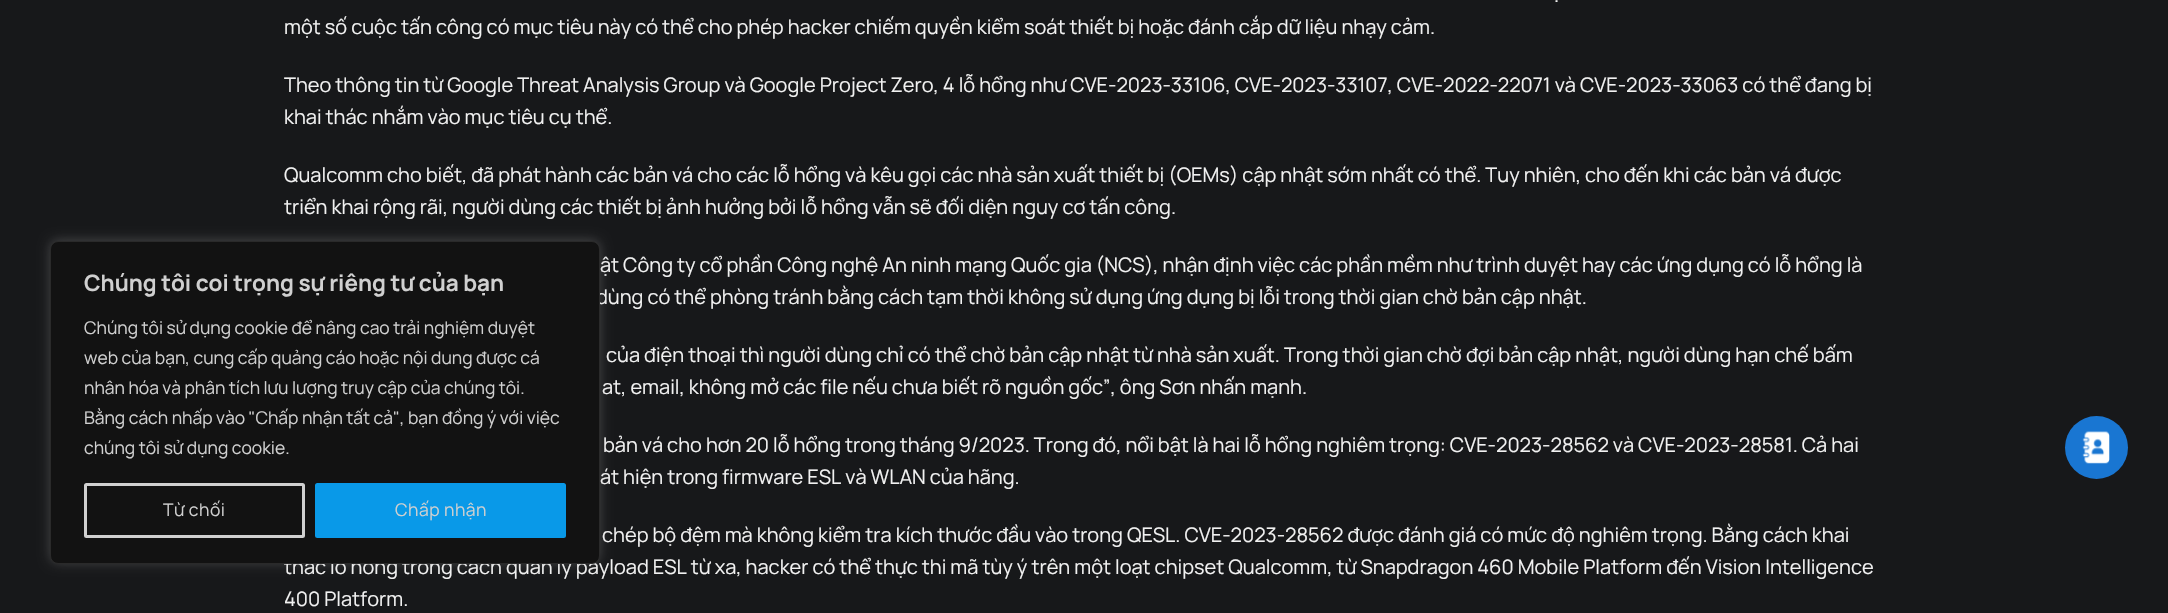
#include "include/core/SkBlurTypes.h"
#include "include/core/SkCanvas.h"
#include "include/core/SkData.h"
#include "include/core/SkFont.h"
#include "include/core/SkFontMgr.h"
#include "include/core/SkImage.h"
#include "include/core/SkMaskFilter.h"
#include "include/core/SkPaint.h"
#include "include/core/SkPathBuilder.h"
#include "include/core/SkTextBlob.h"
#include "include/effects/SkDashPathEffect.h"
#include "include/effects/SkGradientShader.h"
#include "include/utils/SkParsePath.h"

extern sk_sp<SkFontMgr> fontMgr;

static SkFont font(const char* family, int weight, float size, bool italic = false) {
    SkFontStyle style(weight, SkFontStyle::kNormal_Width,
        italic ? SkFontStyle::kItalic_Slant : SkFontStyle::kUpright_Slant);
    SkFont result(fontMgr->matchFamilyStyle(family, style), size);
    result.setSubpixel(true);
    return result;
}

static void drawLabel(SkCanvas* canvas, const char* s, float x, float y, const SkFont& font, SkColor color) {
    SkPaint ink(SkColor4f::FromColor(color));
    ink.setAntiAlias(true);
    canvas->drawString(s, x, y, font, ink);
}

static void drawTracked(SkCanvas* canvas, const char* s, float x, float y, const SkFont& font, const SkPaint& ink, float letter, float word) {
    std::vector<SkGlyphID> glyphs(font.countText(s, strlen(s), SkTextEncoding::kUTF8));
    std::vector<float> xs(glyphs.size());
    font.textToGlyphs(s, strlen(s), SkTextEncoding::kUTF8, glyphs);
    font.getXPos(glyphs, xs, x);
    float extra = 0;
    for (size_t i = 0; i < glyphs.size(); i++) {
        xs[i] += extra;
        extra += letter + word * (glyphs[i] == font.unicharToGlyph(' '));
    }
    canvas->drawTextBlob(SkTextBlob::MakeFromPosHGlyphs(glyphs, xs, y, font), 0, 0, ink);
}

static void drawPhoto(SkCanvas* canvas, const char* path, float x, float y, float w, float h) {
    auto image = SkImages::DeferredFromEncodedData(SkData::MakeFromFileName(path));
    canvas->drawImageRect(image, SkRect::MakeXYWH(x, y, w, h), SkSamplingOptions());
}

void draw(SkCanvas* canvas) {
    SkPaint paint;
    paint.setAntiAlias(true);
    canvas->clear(0xFF17181A);
    SkFont font1 = font("Manrope", 400, 20);
    drawLabel(canvas, ".", 1554, 2, font1, 0xFFF1F1F1);
    drawLabel(canvas, "một số cuộc tấn công có mục tiêu này có thể cho phép hacker chiếm quyền kiểm soát thiết bị hoặc đánh cắp dữ liệu nhạy cảm.", 284, 34, font1, 0xFFF1F1F1);
    drawLabel(canvas, "Theo thông tin từ Google Threat Analysis Group và Google Project Zero, 4 lỗ hổng như CVE-2023-33106, CVE-2023-33107, CVE-2022-22071 và CVE-2023-33063 có thể đang bị", 284, 92, font1, 0xFFF1F1F1);
    drawLabel(canvas, "khai thác nhắm vào mục tiêu cụ thể.", 284, 124, font1, 0xFFF1F1F1);
    drawLabel(canvas, "Qualcomm cho biết, đã phát hành các bản vá cho các lỗ hổng và kêu gọi các nhà sản xuất thiết bị (OEMs) cập nhật sớm nhất có thể. Tuy nhiên, cho đến khi các bản vá được", 284, 182, font1, 0xFFF1F1F1);
    drawLabel(canvas, "triển khai rộng rãi, người dùng các thiết bị ảnh hưởng bởi lỗ hổng vẫn sẽ đối diện nguy cơ tấn công.", 284, 214, font1, 0xFFF1F1F1);
    drawLabel(canvas, "ật Công ty cổ phần Công nghệ An ninh mạng Quốc gia (NCS), nhận định việc các phần mềm như trình duyệt hay các ứng dụng có lỗ hổng là", 600, 272, font1, 0xFFF1F1F1);
    drawLabel(canvas, "dùng có thể phòng tránh bằng cách tạm thời không sử dụng ứng dụng bị lỗi trong thời gian chờ bản cập nhật.", 596, 304, font1, 0xFFF1F1F1);
    drawLabel(canvas, "của điện thoại thì người dùng chỉ có thể chờ bản cập nhật từ nhà sản xuất. Trong thời gian chờ đợi bản cập nhật, người dùng hạn chế bấm", 606, 362, font1, 0xFFF1F1F1);
    drawLabel(canvas, "at, email, không mở các file nếu chưa biết rõ nguồn gốc”, ông Sơn nhấn mạnh.", 602, 394, font1, 0xFFF1F1F1);
    drawLabel(canvas, "bản vá cho hơn 20 lỗ hổng trong tháng 9/2023. Trong đó, nổi bật là hai lỗ hổng nghiêm trọng: CVE-2023-28562 và CVE-2023-28581. Cả hai", 603, 452, font1, 0xFFF1F1F1);
    drawLabel(canvas, "át hiện trong firmware ESL và WLAN của hãng.", 600, 484, font1, 0xFFF1F1F1);
    drawLabel(canvas, "chép bộ đệm mà không kiểm tra kích thước đầu vào trong QESL. CVE-2023-28562 được đánh giá có mức độ nghiêm trọng. Bằng cách khai", 602, 542, font1, 0xFFF1F1F1);
    drawLabel(canvas, "thác lỗ hổng trong cách quản lý payload ESL từ xa, hacker có thể thực thi mã tùy ý trên một loạt chipset Qualcomm, từ Snapdragon 460 Mobile Platform đến Vision Intelligence", 284, 574, font1, 0xFFF1F1F1);
    drawLabel(canvas, "400 Platform.", 284, 606, font1, 0xFFF1F1F1);
    paint.setColor(0x4DACABAB);
    paint.setMaskFilter(SkMaskFilter::MakeBlur(kNormal_SkBlurStyle, 6));
    canvas->drawRoundRect(SkRect::MakeXYWH(50, 240, 550, 323), 8, 8, paint);
    paint.setMaskFilter(nullptr);
    paint.setColor(0xFF121212);
    canvas->drawRoundRect(SkRect::MakeXYWH(50.5f, 241.5f, 549, 322), 7.5f, 7.5f, paint);
    paint.setStroke(true);
    paint.setStrokeWidth(1);
    paint.setColor(0xFF2A2A2A);
    canvas->drawRoundRect(SkRect::MakeXYWH(50.5f, 241.5f, 549, 322), 7.5f, 7.5f, paint);
    SkFont font2 = font("Manrope", 700, 22.5f);
    drawLabel(canvas, "Chúng tôi coi trọng sự riêng tư của bạn", 84, 291, font2, 0xFFD0D0D0);
    SkFont font3 = font("Manrope", 400, 17.5f);
    drawLabel(canvas, "Chúng tôi sử dụng cookie để nâng cao trải nghiệm duyệt", 84, 334, font3, 0xFFD0D0D0);
    drawLabel(canvas, "web của bạn, cung cấp quảng cáo hoặc nội dung được cá", 84, 364, font3, 0xFFD0D0D0);
    drawLabel(canvas, "nhân hóa và phân tích lưu lượng truy cập của chúng tôi.", 84, 394, font3, 0xFFD0D0D0);
    drawLabel(canvas, "Bằng cách nhấp vào \"Chấp nhận tất cả\", bạn đồng ý với việc", 84, 424, font3, 0xFFD0D0D0);
    drawLabel(canvas, "chúng tôi sử dụng cookie.", 84, 454, font3, 0xFFD0D0D0);
    paint.setStrokeWidth(3);
    paint.setColor(0xFFD0D0D0);
    canvas->drawRoundRect(SkRect::MakeXYWH(85.5f, 484.5f, 218, 52), 1, 1, paint);
    paint.setStroke(false);
    drawTracked(canvas, "Từ chối", 163, 516, font3, paint, 0.5f, 0);
    paint.setColor(0xFF0999E8);
    canvas->drawRoundRect(SkRect::MakeXYWH(316.5f, 484.5f, 248, 52), 1, 1, paint);
    paint.setStroke(true);
    canvas->drawRoundRect(SkRect::MakeXYWH(316.5f, 484.5f, 248, 52), 1, 1, paint);
    paint.setStroke(false);
    paint.setColor(0xFFD0D0D0);
    drawTracked(canvas, "Chấp nhận", 395, 516, font3, paint, 0.5f, 0);
    paint.setColor(0xFF1976D2);
    canvas->drawCircle(2096.5f, 447.5f, 31.5f, paint);
    drawPhoto(canvas, "assets/img1.png", 2082, 431, 28, 33);
}
